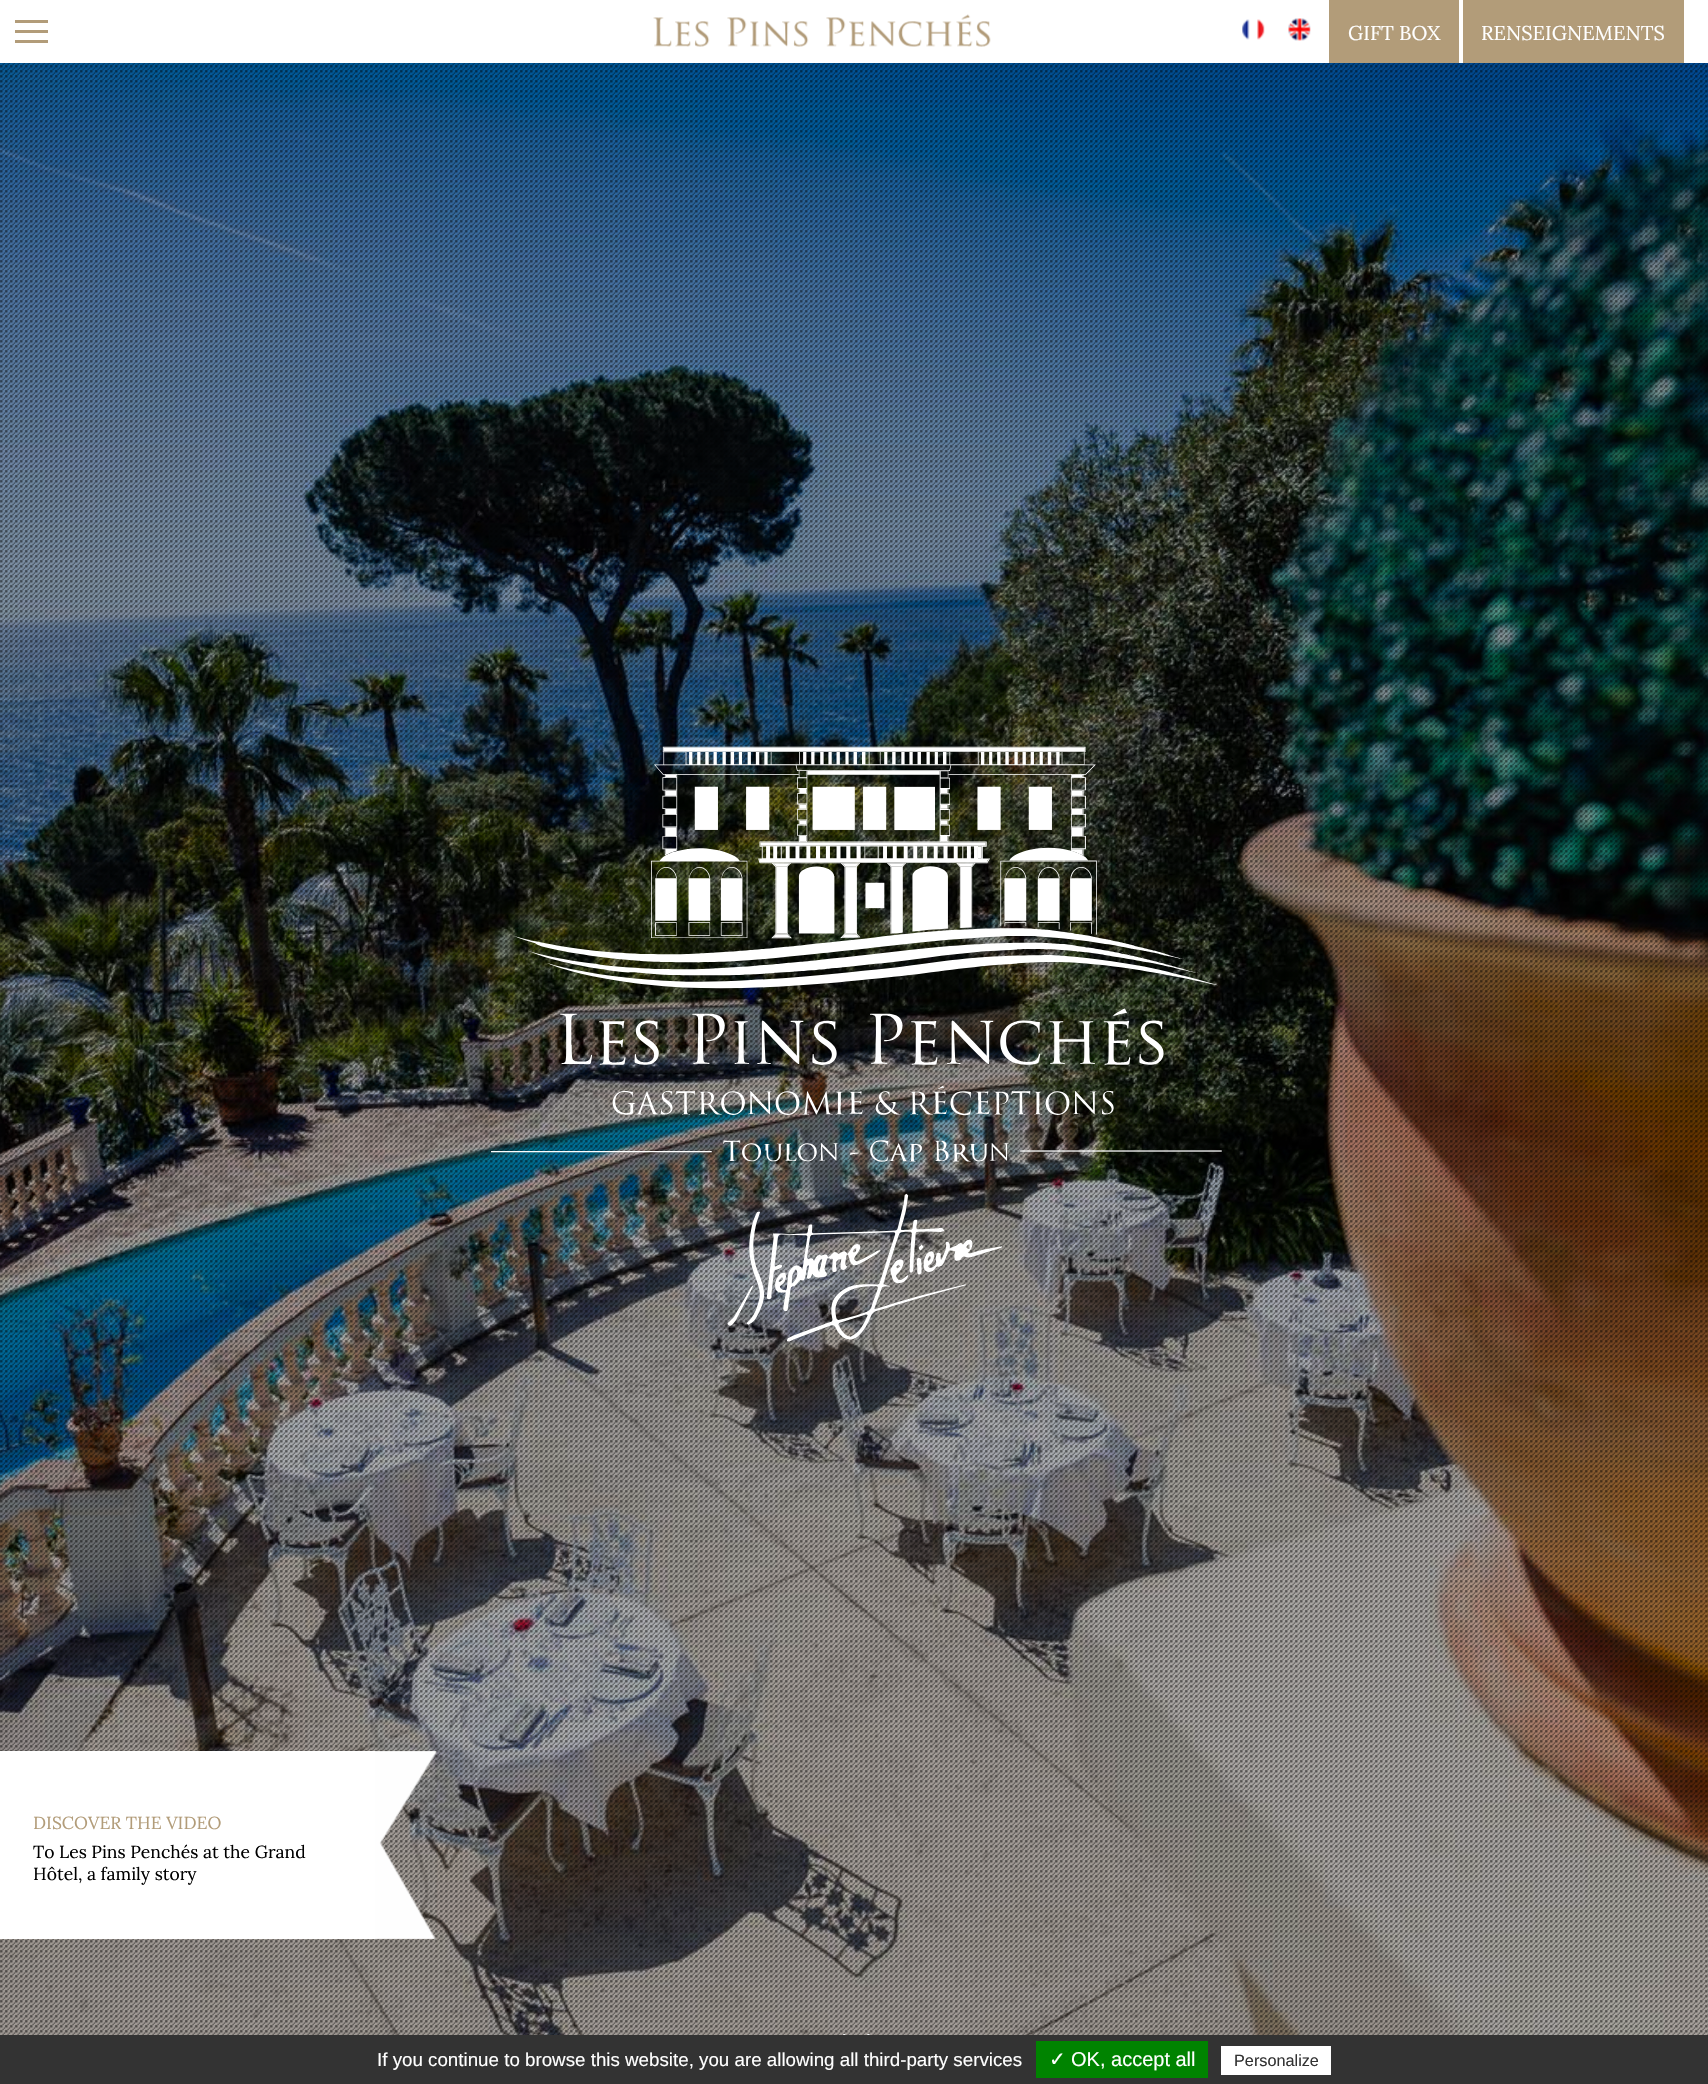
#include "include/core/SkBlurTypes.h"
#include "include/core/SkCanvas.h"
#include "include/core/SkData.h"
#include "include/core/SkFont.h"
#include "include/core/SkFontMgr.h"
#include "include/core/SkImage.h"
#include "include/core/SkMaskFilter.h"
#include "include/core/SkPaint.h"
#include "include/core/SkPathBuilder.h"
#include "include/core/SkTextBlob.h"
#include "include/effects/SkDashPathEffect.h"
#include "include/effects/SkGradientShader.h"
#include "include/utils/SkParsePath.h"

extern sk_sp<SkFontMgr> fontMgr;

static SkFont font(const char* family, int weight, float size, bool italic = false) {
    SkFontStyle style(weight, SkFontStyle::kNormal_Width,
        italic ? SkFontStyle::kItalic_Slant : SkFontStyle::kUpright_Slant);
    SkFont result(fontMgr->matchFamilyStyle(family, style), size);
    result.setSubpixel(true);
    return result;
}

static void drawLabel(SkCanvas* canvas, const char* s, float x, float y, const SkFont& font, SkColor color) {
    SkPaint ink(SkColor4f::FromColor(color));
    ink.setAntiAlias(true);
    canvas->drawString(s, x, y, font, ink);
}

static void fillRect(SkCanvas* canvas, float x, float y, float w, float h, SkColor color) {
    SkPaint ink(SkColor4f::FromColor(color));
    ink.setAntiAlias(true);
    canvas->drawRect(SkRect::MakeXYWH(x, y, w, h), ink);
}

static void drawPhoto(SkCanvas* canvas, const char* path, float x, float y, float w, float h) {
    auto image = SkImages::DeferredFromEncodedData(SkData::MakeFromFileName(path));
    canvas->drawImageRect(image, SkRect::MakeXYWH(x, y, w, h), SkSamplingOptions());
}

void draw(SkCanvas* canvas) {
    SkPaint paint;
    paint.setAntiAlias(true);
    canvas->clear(0xFFFFFFFF);
    fillRect(canvas, 15, 30, 33, 3, 0xFFB29C79);
    fillRect(canvas, 15, 20, 33, 3, 0xFFB29C79);
    fillRect(canvas, 15, 40, 33, 3, 0xFFB29C79);
    drawPhoto(canvas, "assets/img1.png", 653, 14, 338, 33);
    drawPhoto(canvas, "assets/img2.png", 1242, 19, 23, 21);
    drawPhoto(canvas, "assets/img3.png", 1288, 18, 23, 23);
    fillRect(canvas, 1329, 0, 130, 63, 0xFFB29C79);
    SkFont font1 = font("Lora", 400, 20);
    drawLabel(canvas, "GIFT BOX", 1348, 40, font1, 0xFFFFFFFF);
    fillRect(canvas, 1463, 0, 221, 63, 0xFFB29C79);
    drawLabel(canvas, "RENSEIGNEMENTS", 1481, 40, font1, 0xFFFFFFFF);
    drawPhoto(canvas, "assets/img4.png", 0, 63, 1708, 1972);
    drawPhoto(canvas, "assets/img5.png", 0, 63, 1708, 1972);
    drawPhoto(canvas, "assets/img6.png", 491, 746, 731, 596);
    fillRect(canvas, 0, 1751, 375, 188, 0xFFFFFFFF);
    drawPhoto(canvas, "assets/img7.png", 375, 1751, 62, 188);
    SkFont font2 = font("Lora", 400, 17.5f);
    drawLabel(canvas, "DISCOVER THE VIDEO", 33, 1829, font2, 0xFFB29C79);
    drawLabel(canvas, "To Les Pins Penchés at the Grand", 33, 1858, font2, 0xFF000000);
    drawLabel(canvas, "Hôtel, a family story", 33, 1880, font2, 0xFF000000);
    drawPhoto(canvas, "assets/img8.png", 375, 1751, 62, 188);
    drawPhoto(canvas, "assets/img9.png", 842, 2034, 28, 1);
    fillRect(canvas, 0, 2035, 1708, 49, 0xFF333333);
    SkFont font3 = font("Liberation Sans", 400, 18.75f);
    drawLabel(canvas, "If you continue to browse this website, you are allowing all third-party services", 377, 2066, font3, 0xFFFFFFFF);
    fillRect(canvas, 1036, 2041, 172, 37, 0xFF008300);
    SkFont font4 = font("DejaVu Sans", 400, 20);
    drawLabel(canvas, "✓", 1049, 2066, font4, 0xFFFFFFFF);
    SkFont font5 = font("Liberation Sans", 400, 20);
    drawLabel(canvas, "OK, accept all", 1071, 2066, font5, 0xFFFFFFFF);
    fillRect(canvas, 1221, 2046, 110, 29, 0xFFFFFFFF);
    SkFont font6 = font("Liberation Sans", 400, 16.25f);
    drawLabel(canvas, "Personalize", 1234, 2066, font6, 0xFF333333);
}
